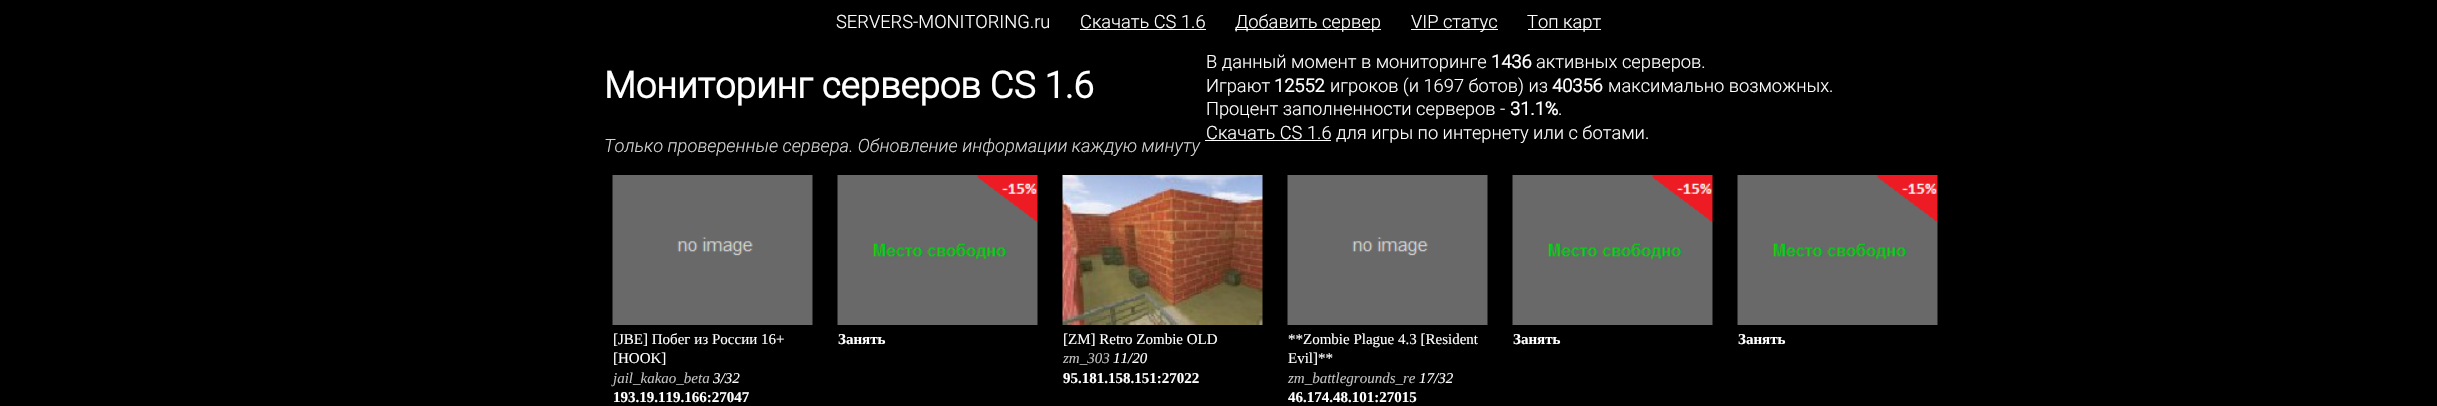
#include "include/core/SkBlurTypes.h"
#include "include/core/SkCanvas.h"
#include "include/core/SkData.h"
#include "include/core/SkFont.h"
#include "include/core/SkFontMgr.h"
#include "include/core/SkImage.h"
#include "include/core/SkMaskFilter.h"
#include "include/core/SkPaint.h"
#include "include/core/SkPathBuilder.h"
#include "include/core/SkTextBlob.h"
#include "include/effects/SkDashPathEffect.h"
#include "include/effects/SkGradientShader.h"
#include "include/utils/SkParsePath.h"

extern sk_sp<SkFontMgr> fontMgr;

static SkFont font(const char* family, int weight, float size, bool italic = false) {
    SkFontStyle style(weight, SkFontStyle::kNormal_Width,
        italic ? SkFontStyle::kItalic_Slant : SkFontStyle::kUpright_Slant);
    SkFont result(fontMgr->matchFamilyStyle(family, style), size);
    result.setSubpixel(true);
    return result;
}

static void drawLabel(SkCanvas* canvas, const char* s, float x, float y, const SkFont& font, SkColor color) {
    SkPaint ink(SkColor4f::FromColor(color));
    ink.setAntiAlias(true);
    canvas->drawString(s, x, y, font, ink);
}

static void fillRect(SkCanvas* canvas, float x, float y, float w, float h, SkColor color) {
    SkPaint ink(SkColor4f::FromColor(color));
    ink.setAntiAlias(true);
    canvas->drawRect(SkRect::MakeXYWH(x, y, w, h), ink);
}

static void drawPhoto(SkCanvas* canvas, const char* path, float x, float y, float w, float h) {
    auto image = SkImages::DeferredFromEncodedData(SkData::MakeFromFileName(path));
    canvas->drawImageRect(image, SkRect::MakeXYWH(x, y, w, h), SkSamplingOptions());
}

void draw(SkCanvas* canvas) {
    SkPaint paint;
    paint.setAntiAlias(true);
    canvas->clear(0xFF000000);
    SkFont font1 = font("Roboto", 300, 18.3f);
    drawLabel(canvas, "SERVERS-MONITORING.ru", 836, 28, font1, 0xFFFFFFFF);
    drawLabel(canvas, "Скачать CS 1.6", 1080, 28, font1, 0xFFFFFFFF);
    fillRect(canvas, 1080, 29, 126, 1, 0xFFFFFFFF);
    fillRect(canvas, 1235, 29, 146, 1, 0xFFFFFFFF);
    drawLabel(canvas, "Добавить сервер", 1235, 28, font1, 0xFFFFFFFF);
    fillRect(canvas, 1411, 29, 87, 1, 0xFFFFFFFF);
    drawLabel(canvas, "VIP статус", 1411, 28, font1, 0xFFFFFFFF);
    fillRect(canvas, 1528, 29, 73, 1, 0xFFFFFFFF);
    drawLabel(canvas, "Топ карт", 1527, 28, font1, 0xFFFFFFFF);
    SkFont font2 = font("Roboto", 700, 36.7f);
    drawLabel(canvas, "Мониторинг серверов CS 1.6", 604, 98, font2, 0xFFFFFFFF);
    SkFont font3 = font("Roboto", 300, 18.3f, true);
    drawLabel(canvas, "Только проверенные сервера. Обновление информации каждую минуту", 604, 152, font3, 0xFFD3D3D3);
    drawLabel(canvas, "В данный момент в мониторинге", 1206, 68, font1, 0xFFFFFFFF);
    SkFont font4 = font("Roboto", 700, 18.3f);
    drawLabel(canvas, "1436", 1491, 68, font4, 0xFFFFFFFF);
    drawLabel(canvas, "активных серверов.", 1536, 68, font1, 0xFFFFFFFF);
    drawLabel(canvas, "Играют", 1206, 92, font1, 0xFFFFFFFF);
    drawLabel(canvas, "12552", 1274, 92, font4, 0xFFFFFFFF);
    drawLabel(canvas, "игроков (и 1697 ботов) из", 1330, 92, font1, 0xFFFFFFFF);
    drawLabel(canvas, "40356", 1552, 92, font4, 0xFFFFFFFF);
    drawLabel(canvas, "максимально возможных.", 1608, 92, font1, 0xFFFFFFFF);
    drawLabel(canvas, "Процент заполненности серверов -", 1206, 115, font1, 0xFFFFFFFF);
    drawLabel(canvas, "31.1%", 1510, 115, font4, 0xFFFFFFFF);
    drawLabel(canvas, ".", 1558, 115, font1, 0xFFFFFFFF);
    fillRect(canvas, 1205, 140, 126, 1, 0xFFFFFFFF);
    drawLabel(canvas, "Скачать CS 1.6 для игры по интернету или с ботами.", 1206, 139, font1, 0xFFFFFFFF);
    drawPhoto(canvas, "assets/img1.png", 612, 175, 201, 150);
    SkFont font5 = font("Liberation Serif", 400, 15);
    drawLabel(canvas, "[JBE] Побег из России 16+", 613, 344, font5, 0xFFFFFFFF);
    drawLabel(canvas, "[HOOK]", 613, 363, font5, 0xFFFFFFFF);
    SkFont font6 = font("Liberation Serif", 400, 15, true);
    drawLabel(canvas, "jail_kakao_beta", 613, 383, font6, 0xFFC0C0C0);
    drawLabel(canvas, "3/32", 713, 383, font6, 0xFFFFFFFF);
    SkFont font7 = font("Liberation Serif", 700, 15);
    drawLabel(canvas, "193.19.119.166:27047", 613, 402, font7, 0xFFFFFFFF);
    drawPhoto(canvas, "assets/img2.png", 837, 175, 201, 150);
    drawLabel(canvas, "Занять", 838, 344, font7, 0xFFFFFFFF);
    drawPhoto(canvas, "assets/img3.png", 1062, 175, 201, 150);
    drawLabel(canvas, "[ZM] Retro Zombie OLD", 1063, 344, font5, 0xFFFFFFFF);
    drawLabel(canvas, "zm_303", 1063, 363, font6, 0xFFC0C0C0);
    drawLabel(canvas, "11/20", 1113, 363, font6, 0xFFFFFFFF);
    drawLabel(canvas, "95.181.158.151:27022", 1063, 383, font7, 0xFFFFFFFF);
    drawPhoto(canvas, "assets/img1.png", 1287, 175, 201, 150);
    drawLabel(canvas, "**Zombie Plague 4.3 [Resident", 1288, 344, font5, 0xFFFFFFFF);
    drawLabel(canvas, "Evil]**", 1288, 363, font5, 0xFFFFFFFF);
    drawLabel(canvas, "zm_battlegrounds_re", 1288, 383, font6, 0xFFC0C0C0);
    drawLabel(canvas, "17/32", 1419, 383, font6, 0xFFFFFFFF);
    drawLabel(canvas, "46.174.48.101:27015", 1288, 402, font7, 0xFFFFFFFF);
    drawPhoto(canvas, "assets/img4.png", 1512, 175, 201, 150);
    drawLabel(canvas, "Занять", 1513, 344, font7, 0xFFFFFFFF);
    drawPhoto(canvas, "assets/img5.png", 1737, 175, 201, 150);
    drawLabel(canvas, "Занять", 1738, 344, font7, 0xFFFFFFFF);
}
